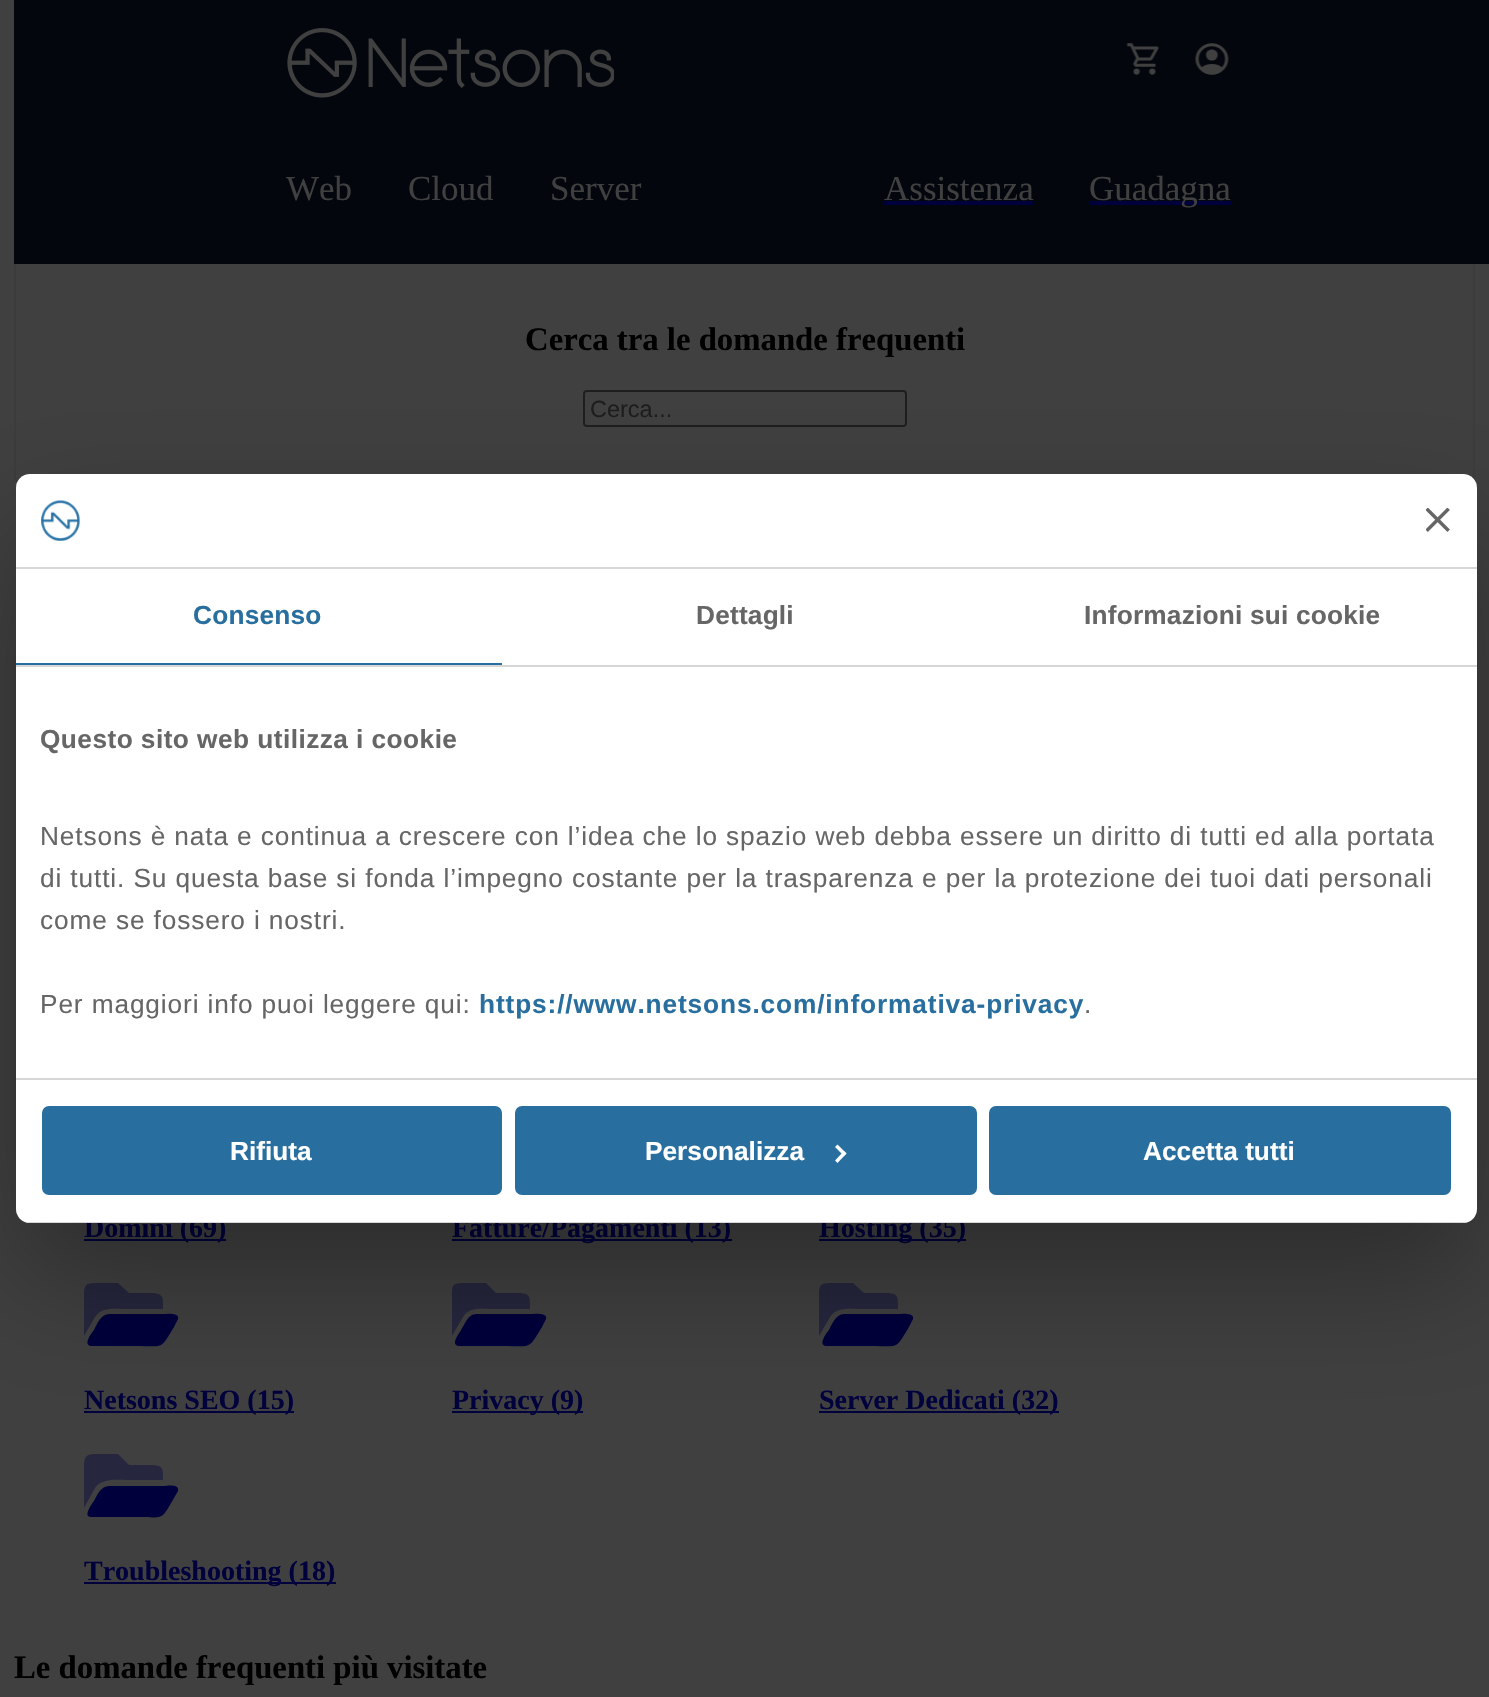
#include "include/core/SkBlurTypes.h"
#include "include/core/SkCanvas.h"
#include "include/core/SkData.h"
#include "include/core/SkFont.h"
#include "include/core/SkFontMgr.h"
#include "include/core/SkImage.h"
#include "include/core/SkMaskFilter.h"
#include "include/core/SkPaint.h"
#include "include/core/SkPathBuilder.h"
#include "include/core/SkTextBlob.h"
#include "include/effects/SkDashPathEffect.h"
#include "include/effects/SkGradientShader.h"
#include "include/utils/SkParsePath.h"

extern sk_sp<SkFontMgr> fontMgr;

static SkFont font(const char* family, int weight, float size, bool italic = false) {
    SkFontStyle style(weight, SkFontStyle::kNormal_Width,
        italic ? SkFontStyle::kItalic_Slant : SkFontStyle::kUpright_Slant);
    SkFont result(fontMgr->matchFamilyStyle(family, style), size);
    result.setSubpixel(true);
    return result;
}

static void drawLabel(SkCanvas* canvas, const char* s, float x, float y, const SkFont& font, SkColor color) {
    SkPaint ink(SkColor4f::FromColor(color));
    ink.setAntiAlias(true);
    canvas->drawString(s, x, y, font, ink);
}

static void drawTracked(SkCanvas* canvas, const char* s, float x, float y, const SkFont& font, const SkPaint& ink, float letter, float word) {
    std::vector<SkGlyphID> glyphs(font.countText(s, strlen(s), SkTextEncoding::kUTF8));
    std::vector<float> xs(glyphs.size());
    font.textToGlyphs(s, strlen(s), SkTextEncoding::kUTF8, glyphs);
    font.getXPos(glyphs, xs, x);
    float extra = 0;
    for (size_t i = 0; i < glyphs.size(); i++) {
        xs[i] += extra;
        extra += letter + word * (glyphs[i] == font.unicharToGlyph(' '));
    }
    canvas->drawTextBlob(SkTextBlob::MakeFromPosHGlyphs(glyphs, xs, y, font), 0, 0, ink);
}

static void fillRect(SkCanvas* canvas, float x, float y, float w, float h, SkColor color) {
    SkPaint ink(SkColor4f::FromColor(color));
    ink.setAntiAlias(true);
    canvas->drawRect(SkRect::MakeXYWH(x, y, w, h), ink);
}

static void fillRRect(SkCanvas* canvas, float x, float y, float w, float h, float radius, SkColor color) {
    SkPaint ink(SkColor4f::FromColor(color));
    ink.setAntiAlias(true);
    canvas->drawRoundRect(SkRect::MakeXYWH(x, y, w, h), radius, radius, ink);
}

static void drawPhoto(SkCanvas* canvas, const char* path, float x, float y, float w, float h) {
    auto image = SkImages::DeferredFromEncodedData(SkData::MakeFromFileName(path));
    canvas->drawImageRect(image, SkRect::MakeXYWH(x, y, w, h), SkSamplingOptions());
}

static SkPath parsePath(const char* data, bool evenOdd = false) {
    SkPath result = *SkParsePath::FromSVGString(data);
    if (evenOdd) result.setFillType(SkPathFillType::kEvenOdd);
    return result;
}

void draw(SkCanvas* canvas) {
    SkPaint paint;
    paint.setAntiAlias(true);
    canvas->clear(0xFF404040);
    paint.setStroke(true);
    paint.setStrokeWidth(2);
    paint.setColor(0xFF3C3C3C);
    canvas->drawRect(SkRect::MakeXYWH(15, 234, 1459, 246), paint);
    fillRect(canvas, 14, 0, 1475, 264, 0xFF03060D);
    drawPhoto(canvas, "assets/img1.png", 287, 28, 327, 70);
    drawPhoto(canvas, "assets/img2.png", 1126, 43, 33, 32);
    drawPhoto(canvas, "assets/img3.png", 1195, 43, 34, 32);
    SkFont font1 = font("Liberation Serif", 400, 35);
    drawLabel(canvas, "Web", 286, 200, font1, 0xFF404040);
    drawLabel(canvas, "Cloud", 408, 200, font1, 0xFF404040);
    drawLabel(canvas, "Server", 550, 200, font1, 0xFF404040);
    drawLabel(canvas, "Assistenza", 884, 200, font1, 0xFF404040);
    fillRect(canvas, 884, 201, 149, 4, 0xFF00003C);
    fillRect(canvas, 1089, 201, 143, 4, 0xFF00003C);
    drawLabel(canvas, "Guadagna", 1089, 200, font1, 0xFF404040);
    SkFont font2 = font("Liberation Serif", 700, 32.75f);
    drawLabel(canvas, "Cerca tra le domande frequenti", 525, 350, font2, 0xFF000000);
    paint.setColor(0xFF1E1E1E);
    canvas->drawRoundRect(SkRect::MakeXYWH(584, 391, 322, 35), 3, 3, paint);
    SkFont font3 = font("Liberation Sans", 400, 23.5f);
    drawLabel(canvas, "Cerca...", 590, 417, font3, 0xFF1D1D1D);
    fillRect(canvas, 84, 1239, 142, 2, 0xFF00003C);
    SkFont font4 = font("Liberation Serif", 700, 28);
    drawLabel(canvas, "Domini (69)", 84, 1237, font4, 0xFF00003C);
    fillRect(canvas, 452, 1239, 280, 2, 0xFF00003C);
    drawLabel(canvas, "Fatture/Pagamenti (13)", 452, 1237, font4, 0xFF00003C);
    fillRect(canvas, 819, 1239, 147, 2, 0xFF00003C);
    drawLabel(canvas, "Hosting (35)", 819, 1237, font4, 0xFF00003C);
    paint.setStroke(false);
    paint.setColor(0xFF00003C);
    canvas->drawPath(parsePath("M109 1314H164C165 1314 180 1312 178 1319L174 1327C160 1350 165 1346 135 1346H91C82 1345 93 1331 94 1330C97 1324 101 1314 109 1314Z"), paint);
    paint.setColor(0xFF26263E);
    canvas->drawPath(parsePath("M95 1317L84 1336V1298C84 1286 84 1283 96 1283H118L129 1293H150C164 1293 163 1297 163 1309H127C117 1309 102 1306 95 1317Z"), paint);
    fillRect(canvas, 84, 1411, 210, 2, 0xFF00003C);
    drawLabel(canvas, "Netsons SEO (15)", 84, 1409, font4, 0xFF00003C);
    paint.setColor(0xFF00003C);
    canvas->drawPath(parsePath("M476 1314H531C533 1314 548 1312 546 1319L542 1327C528 1350 532 1346 503 1346H459C449 1345 461 1331 461 1330C465 1324 468 1314 476 1314Z"), paint);
    paint.setColor(0xFF26263E);
    canvas->drawPath(parsePath("M463 1317L452 1336V1298C452 1286 451 1283 464 1283H486L496 1293H518C531 1293 530 1297 530 1309H494C484 1309 469 1306 463 1317Z"), paint);
    fillRect(canvas, 452, 1411, 131, 2, 0xFF00003C);
    drawLabel(canvas, "Privacy (9)", 452, 1409, font4, 0xFF00003C);
    paint.setColor(0xFF00003C);
    canvas->drawPath(parsePath("M844 1314H899C900 1314 915 1312 913 1319L909 1327C895 1350 900 1346 870 1346H826C817 1345 828 1331 829 1330C832 1324 836 1314 844 1314Z"), paint);
    paint.setColor(0xFF26263E);
    canvas->drawPath(parsePath("M830 1317L819 1336V1298C819 1286 819 1283 831 1283H853L864 1293H886C899 1293 898 1297 898 1309H862C852 1309 837 1306 830 1317Z"), paint);
    fillRect(canvas, 819, 1411, 240, 2, 0xFF00003C);
    drawLabel(canvas, "Server Dedicati (32)", 819, 1409, font4, 0xFF00003C);
    paint.setColor(0xFF00003C);
    canvas->drawPath(parsePath("M109 1486H164C165 1486 180 1483 178 1491L174 1498C160 1522 165 1517 135 1517H91C82 1517 93 1502 94 1501C97 1495 101 1486 109 1486Z"), paint);
    paint.setColor(0xFF26263E);
    canvas->drawPath(parsePath("M95 1488L84 1508V1470C84 1458 84 1454 96 1454H118L129 1465H150C164 1465 163 1469 163 1480H127C117 1480 102 1478 95 1488Z"), paint);
    fillRect(canvas, 84, 1582, 252, 2, 0xFF00003C);
    drawLabel(canvas, "Troubleshooting (18)", 84, 1580, font4, 0xFF00003C);
    drawLabel(canvas, "Le domande frequenti più visitate", 14, 1678, font2, 0xFF000000);
    paint.setColor(0x4D000000);
    paint.setMaskFilter(SkMaskFilter::MakeBlur(kNormal_SkBlurStyle, 59.5f));
    canvas->drawRoundRect(SkRect::MakeXYWH(16, 530, 1461, 749), 14, 14, paint);
    paint.setMaskFilter(nullptr);
    fillRRect(canvas, 16, 474, 1461, 749, 14, 0xFFFFFFFF);
    fillRect(canvas, 16, 567, 1461, 2, 0xFFD6D6D6);
    drawPhoto(canvas, "assets/img4.png", 41, 500, 39, 41);
    drawPhoto(canvas, "assets/img5.png", 1426, 508, 24, 24);
    fillRect(canvas, 16, 665, 1461, 2, 0xFFD6D6D6);
    fillRect(canvas, 16, 663, 486, 2, 0xFF286E9E);
    SkFont font5 = font("Liberation Sans", 700, 26.25f);
    paint.setColor(0xFF286E9E);
    drawTracked(canvas, "Consenso", 193, 624, font5, paint, 0.2f, 0);
    paint.setColor(0xFF666666);
    drawTracked(canvas, "Dettagli", 696, 624, font5, paint, 0.2f, 0);
    drawTracked(canvas, "Informazioni sui cookie", 1084, 624, font5, paint, 0.2f, 0);
    fillRect(canvas, 16, 1078, 1461, 2, 0xFFD6D6D6);
    drawTracked(canvas, "Questo sito web utilizza i cookie", 40, 748, font5, paint, 0.45f, 0);
    SkFont font6 = font("Liberation Sans", 400, 26.25f);
    drawTracked(canvas, "Netsons è nata e continua a crescere con l’idea che lo spazio web debba essere un diritto di tutti ed alla portata", 40, 845, font6, paint, 0.88f, 0);
    drawTracked(canvas, "di tutti. Su questa base si fonda l’impegno costante per la trasparenza e per la protezione dei tuoi dati personali", 40, 887, font6, paint, 0.88f, 0);
    drawTracked(canvas, "come se fossero i nostri.", 40, 929, font6, paint, 0.88f, 0);
    drawTracked(canvas, "Per maggiori info puoi leggere qui:", 40, 1013, font6, paint, 0.88f, 0);
    paint.setColor(0xFF286E9E);
    drawTracked(canvas, "https://www.netsons.com/informativa-privacy", 479, 1013, font5, paint, 0.88f, 0);
    paint.setColor(0xFF666666);
    drawTracked(canvas, ".", 1084, 1013, font6, paint, 0.88f, 0);
    canvas->save();
    canvas->clipPath(parsePath("M30 474H1463C1470.5 474 1477 480.5 1477 488V1209C1477 1216.5 1470.5 1223 1463 1223H30C22.5 1223 16 1216.5 16 1209V488C16 480.5 22.5 474 30 474Z"), true);
    fillRect(canvas, 25, 1222, 1443, 1, 0xFFD6D6D6);
    canvas->restore();
    paint.setColor(0xFF286E9E);
    canvas->drawRoundRect(SkRect::MakeXYWH(44, 1108, 456, 85), 5, 5, paint);
    paint.setStroke(true);
    paint.setStrokeWidth(4);
    canvas->drawRoundRect(SkRect::MakeXYWH(44, 1108, 456, 85), 5, 5, paint);
    drawLabel(canvas, "Rifiuta", 230, 1160, font5, 0xFFFFFFFF);
    paint.setStroke(false);
    canvas->drawRoundRect(SkRect::MakeXYWH(517, 1108, 458, 85), 5, 5, paint);
    paint.setStroke(true);
    canvas->drawRoundRect(SkRect::MakeXYWH(517, 1108, 458, 85), 5, 5, paint);
    drawLabel(canvas, "Personalizza", 645, 1160, font5, 0xFFFFFFFF);
    paint.setStroke(false);
    paint.setColor(0xFFFFFFFF);
    canvas->drawPath(parsePath("M837.5 1144.5L846.5 1153.5L844 1156L835 1147Z"), paint);
    canvas->drawPath(parsePath("M844 1151L846.5 1153.5L837.5 1163L835 1160.5Z"), paint);
    paint.setColor(0xFF286E9E);
    canvas->drawRoundRect(SkRect::MakeXYWH(991, 1108, 458, 85), 5, 5, paint);
    paint.setStroke(true);
    canvas->drawRoundRect(SkRect::MakeXYWH(991, 1108, 458, 85), 5, 5, paint);
    drawLabel(canvas, "Accetta tutti", 1143, 1160, font5, 0xFFFFFFFF);
}
